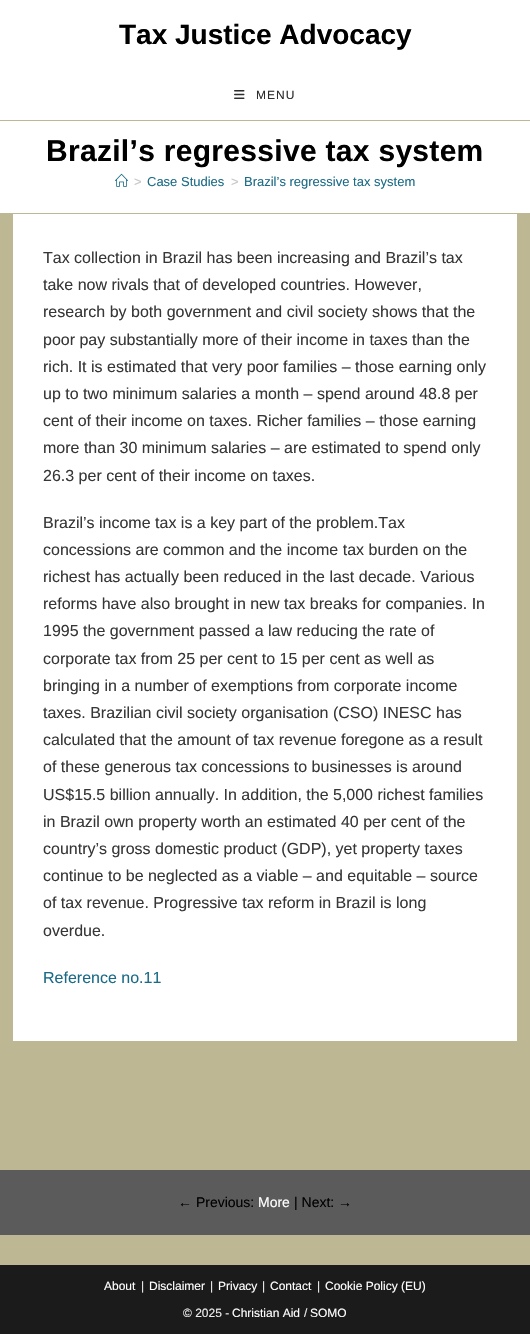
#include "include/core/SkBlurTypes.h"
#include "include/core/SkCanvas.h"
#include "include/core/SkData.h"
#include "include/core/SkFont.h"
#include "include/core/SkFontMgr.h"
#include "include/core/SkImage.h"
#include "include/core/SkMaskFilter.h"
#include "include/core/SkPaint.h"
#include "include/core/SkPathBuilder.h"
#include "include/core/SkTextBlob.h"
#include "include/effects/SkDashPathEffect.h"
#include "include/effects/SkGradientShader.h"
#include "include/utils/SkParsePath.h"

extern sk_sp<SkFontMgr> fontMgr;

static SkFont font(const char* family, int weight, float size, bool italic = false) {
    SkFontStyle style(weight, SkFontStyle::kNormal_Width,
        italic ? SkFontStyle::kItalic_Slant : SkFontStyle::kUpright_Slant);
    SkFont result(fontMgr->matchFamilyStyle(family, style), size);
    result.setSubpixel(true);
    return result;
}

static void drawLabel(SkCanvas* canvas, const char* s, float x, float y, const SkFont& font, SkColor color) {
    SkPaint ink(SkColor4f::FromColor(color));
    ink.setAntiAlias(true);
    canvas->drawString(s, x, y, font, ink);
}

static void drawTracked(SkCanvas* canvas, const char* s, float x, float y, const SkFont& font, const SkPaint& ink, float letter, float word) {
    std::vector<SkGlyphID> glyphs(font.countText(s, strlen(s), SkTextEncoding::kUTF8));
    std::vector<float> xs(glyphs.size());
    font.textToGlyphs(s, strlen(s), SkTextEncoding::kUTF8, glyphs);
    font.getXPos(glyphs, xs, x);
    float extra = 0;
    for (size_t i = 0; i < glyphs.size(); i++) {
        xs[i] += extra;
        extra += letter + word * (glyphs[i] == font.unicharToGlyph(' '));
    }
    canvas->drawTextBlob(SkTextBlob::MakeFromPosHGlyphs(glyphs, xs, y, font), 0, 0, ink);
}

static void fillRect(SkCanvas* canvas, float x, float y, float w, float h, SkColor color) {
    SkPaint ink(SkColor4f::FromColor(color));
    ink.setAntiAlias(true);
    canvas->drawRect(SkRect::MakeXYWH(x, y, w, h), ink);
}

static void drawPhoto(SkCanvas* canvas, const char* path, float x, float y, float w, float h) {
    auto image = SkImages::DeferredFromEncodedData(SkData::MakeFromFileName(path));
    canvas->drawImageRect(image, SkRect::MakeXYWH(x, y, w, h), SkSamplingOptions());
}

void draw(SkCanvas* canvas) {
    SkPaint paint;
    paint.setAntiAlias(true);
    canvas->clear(0xFFBEB793);
    fillRect(canvas, 0, 0, 530, 120, 0xFFFFFFFF);
    SkFont font1 = font("Liberation Sans", 700, 28);
    drawLabel(canvas, "Tax Justice Advocacy", 119, 44, font1, 0xFF000000);
    drawPhoto(canvas, "assets/img1.png", 234, 90, 11, 9);
    SkFont font2 = font("Liberation Sans", 400, 12);
    paint.setColor(0xFF2D2D2D);
    drawTracked(canvas, "MENU", 256, 99, font2, paint, 1, 0);
    fillRect(canvas, 0, 121, 530, 92, 0xFFFFFFFF);
    SkFont font3 = font("Liberation Sans", 700, 30);
    paint.setColor(0xFF000000);
    drawTracked(canvas, "Brazil’s regressive tax system", 46, 161, font3, paint, 0.3f, 0);
    drawPhoto(canvas, "assets/img2.png", 115, 173, 13, 14);
    SkFont font4 = font("Liberation Sans", 400, 13);
    drawLabel(canvas, ">", 134, 186, font4, 0xFFC6C6C6);
    drawLabel(canvas, "Case Studies", 147, 186, font4, 0xFF1B6B87);
    drawLabel(canvas, ">", 231, 186, font4, 0xFFC6C6C6);
    drawLabel(canvas, "Brazil’s regressive tax system", 244, 186, font4, 0xFF1B6B87);
    fillRect(canvas, 13, 214, 504, 827, 0xFFFFFFFF);
    SkFont font5 = font("Liberation Sans", 400, 16);
    drawLabel(canvas, "Tax collection in Brazil has been increasing and Brazil’s tax", 43, 263, font5, 0xFF373737);
    drawLabel(canvas, "take now rivals that of developed countries. However,", 43, 290, font5, 0xFF373737);
    drawLabel(canvas, "research by both government and civil society shows that the", 43, 317, font5, 0xFF373737);
    drawLabel(canvas, "poor pay substantially more of their income in taxes than the", 43, 345, font5, 0xFF373737);
    drawLabel(canvas, "rich. It is estimated that very poor families – those earning only", 43, 372, font5, 0xFF373737);
    drawLabel(canvas, "up to two minimum salaries a month – spend around 48.8 per", 43, 399, font5, 0xFF373737);
    drawLabel(canvas, "cent of their income on taxes. Richer families – those earning", 43, 426, font5, 0xFF373737);
    drawLabel(canvas, "more than 30 minimum salaries – are estimated to spend only", 43, 453, font5, 0xFF373737);
    drawLabel(canvas, "26.3 per cent of their income on taxes.", 43, 481, font5, 0xFF373737);
    drawLabel(canvas, "Brazil’s income tax is a key part of the problem.Tax", 43, 528, font5, 0xFF373737);
    drawLabel(canvas, "concessions are common and the income tax burden on the", 43, 555, font5, 0xFF373737);
    drawLabel(canvas, "richest has actually been reduced in the last decade. Various", 43, 582, font5, 0xFF373737);
    drawLabel(canvas, "reforms have also brought in new tax breaks for companies. In", 43, 609, font5, 0xFF373737);
    drawLabel(canvas, "1995 the government passed a law reducing the rate of", 43, 636, font5, 0xFF373737);
    drawLabel(canvas, "corporate tax from 25 per cent to 15 per cent as well as", 43, 664, font5, 0xFF373737);
    drawLabel(canvas, "bringing in a number of exemptions from corporate income", 43, 691, font5, 0xFF373737);
    drawLabel(canvas, "taxes. Brazilian civil society organisation (CSO) INESC has", 43, 718, font5, 0xFF373737);
    drawLabel(canvas, "calculated that the amount of tax revenue foregone as a result", 43, 745, font5, 0xFF373737);
    drawLabel(canvas, "of these generous tax concessions to businesses is around", 43, 772, font5, 0xFF373737);
    drawLabel(canvas, "US$15.5 billion annually. In addition, the 5,000 richest families", 43, 800, font5, 0xFF373737);
    drawLabel(canvas, "in Brazil own property worth an estimated 40 per cent of the", 43, 827, font5, 0xFF373737);
    drawLabel(canvas, "country’s gross domestic product (GDP), yet property taxes", 43, 854, font5, 0xFF373737);
    drawLabel(canvas, "continue to be neglected as a viable – and equitable – source", 43, 881, font5, 0xFF373737);
    drawLabel(canvas, "of tax revenue. Progressive tax reform in Brazil is long", 43, 908, font5, 0xFF373737);
    drawLabel(canvas, "overdue.", 43, 936, font5, 0xFF373737);
    drawLabel(canvas, "Reference no.11", 43, 983, font5, 0xFF1B6B87);
    fillRect(canvas, 0, 1170, 530, 65, 0xFF5B5B5B);
    SkFont font6 = font("Liberation Sans", 400, 14);
    drawLabel(canvas, "← Previous:", 178, 1207, font6, 0xFF000000);
    drawLabel(canvas, "More", 258, 1207, font6, 0xFFFFFFFF);
    drawLabel(canvas, "| Next: →", 294, 1207, font6, 0xFF000000);
    fillRect(canvas, 0, 1265, 530, 69, 0xFF1B1B1B);
    drawLabel(canvas, "About", 104, 1290, font2, 0xFFFFFFFF);
    drawLabel(canvas, "|", 141, 1290, font2, 0xFFEDEDED);
    drawLabel(canvas, "Disclaimer", 149, 1290, font2, 0xFFFFFFFF);
    drawLabel(canvas, "|", 210, 1290, font2, 0xFFEDEDED);
    drawLabel(canvas, "Privacy", 218, 1290, font2, 0xFFFFFFFF);
    drawLabel(canvas, "|", 262, 1290, font2, 0xFFEDEDED);
    drawLabel(canvas, "Contact", 270, 1290, font2, 0xFFFFFFFF);
    drawLabel(canvas, "|", 317, 1290, font2, 0xFFEDEDED);
    drawLabel(canvas, "Cookie Policy (EU)", 325, 1290, font2, 0xFFFFFFFF);
    drawLabel(canvas, "© 2025 -", 183, 1317, font2, 0xFFEDEDED);
    drawLabel(canvas, "Christian Aid", 232, 1317, font2, 0xFFFFFFFF);
    drawLabel(canvas, "/", 304, 1317, font2, 0xFFEDEDED);
    drawLabel(canvas, "SOMO", 310, 1317, font2, 0xFFFFFFFF);
}
